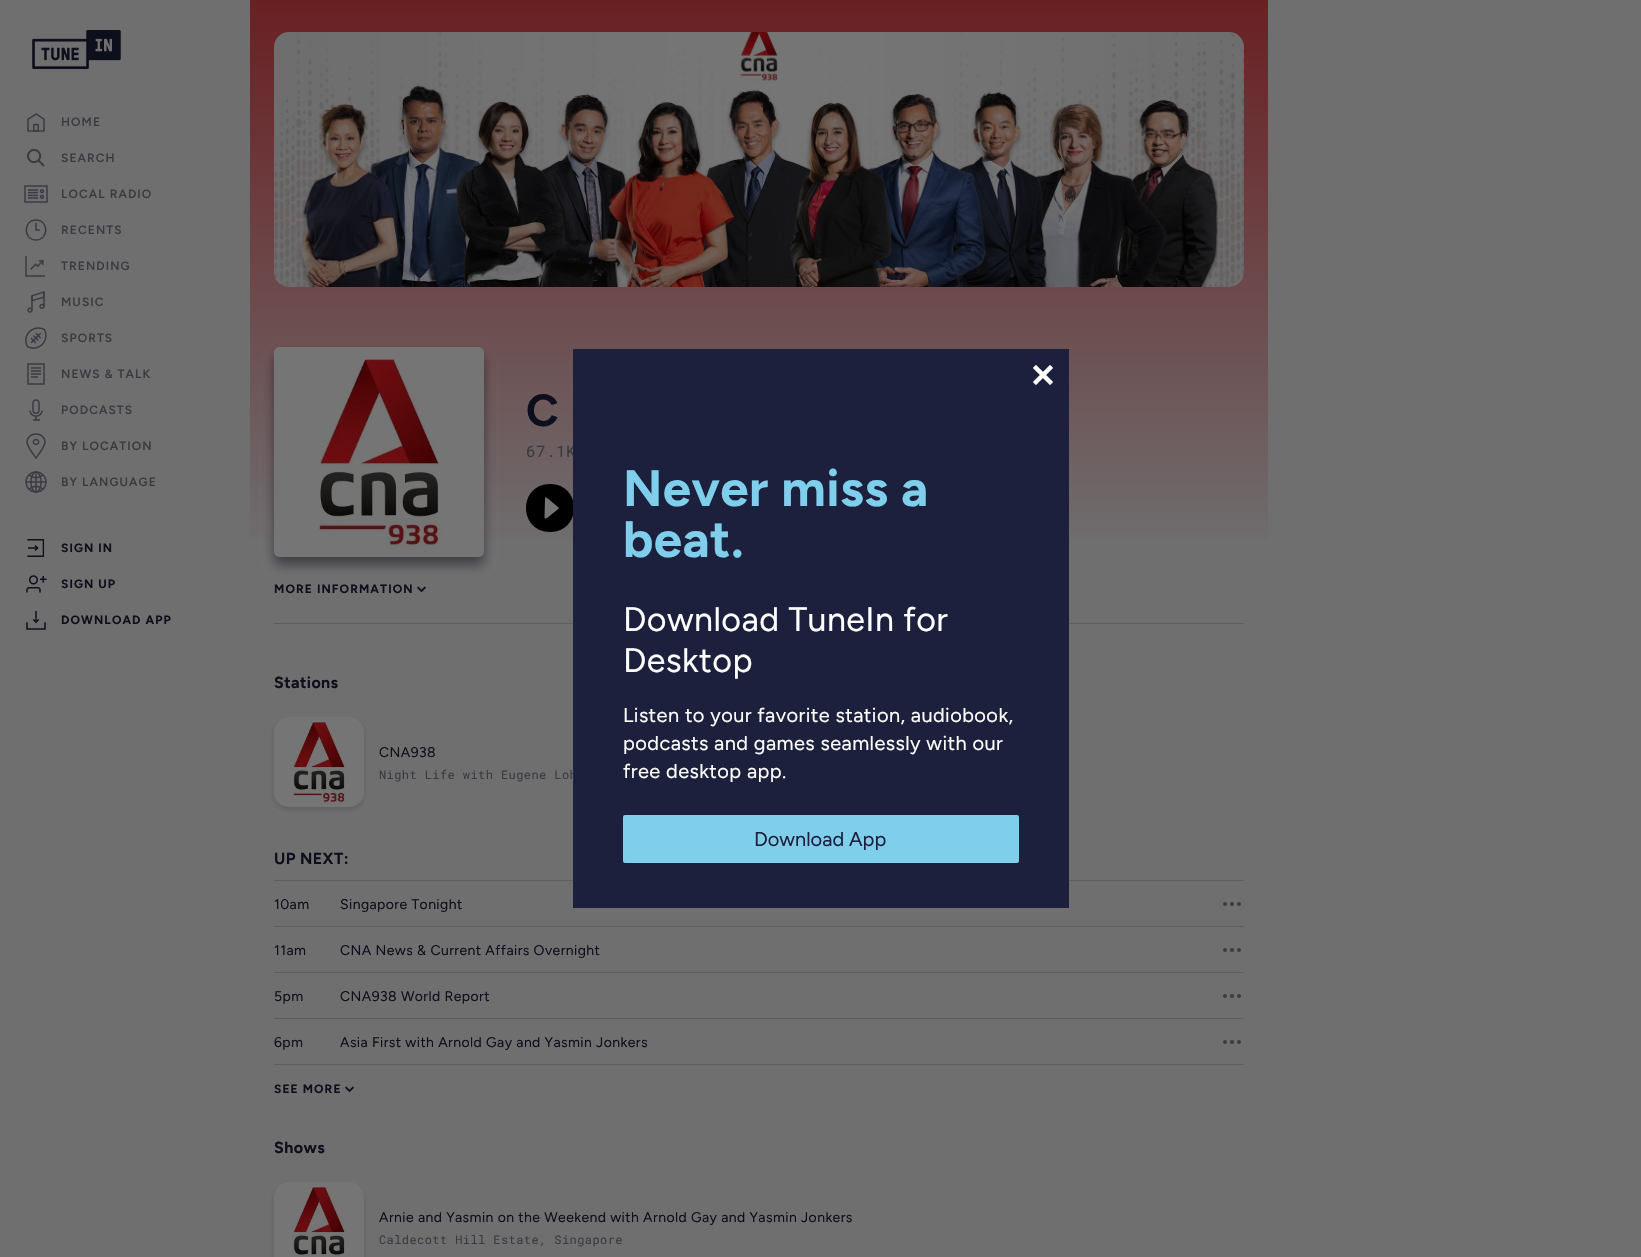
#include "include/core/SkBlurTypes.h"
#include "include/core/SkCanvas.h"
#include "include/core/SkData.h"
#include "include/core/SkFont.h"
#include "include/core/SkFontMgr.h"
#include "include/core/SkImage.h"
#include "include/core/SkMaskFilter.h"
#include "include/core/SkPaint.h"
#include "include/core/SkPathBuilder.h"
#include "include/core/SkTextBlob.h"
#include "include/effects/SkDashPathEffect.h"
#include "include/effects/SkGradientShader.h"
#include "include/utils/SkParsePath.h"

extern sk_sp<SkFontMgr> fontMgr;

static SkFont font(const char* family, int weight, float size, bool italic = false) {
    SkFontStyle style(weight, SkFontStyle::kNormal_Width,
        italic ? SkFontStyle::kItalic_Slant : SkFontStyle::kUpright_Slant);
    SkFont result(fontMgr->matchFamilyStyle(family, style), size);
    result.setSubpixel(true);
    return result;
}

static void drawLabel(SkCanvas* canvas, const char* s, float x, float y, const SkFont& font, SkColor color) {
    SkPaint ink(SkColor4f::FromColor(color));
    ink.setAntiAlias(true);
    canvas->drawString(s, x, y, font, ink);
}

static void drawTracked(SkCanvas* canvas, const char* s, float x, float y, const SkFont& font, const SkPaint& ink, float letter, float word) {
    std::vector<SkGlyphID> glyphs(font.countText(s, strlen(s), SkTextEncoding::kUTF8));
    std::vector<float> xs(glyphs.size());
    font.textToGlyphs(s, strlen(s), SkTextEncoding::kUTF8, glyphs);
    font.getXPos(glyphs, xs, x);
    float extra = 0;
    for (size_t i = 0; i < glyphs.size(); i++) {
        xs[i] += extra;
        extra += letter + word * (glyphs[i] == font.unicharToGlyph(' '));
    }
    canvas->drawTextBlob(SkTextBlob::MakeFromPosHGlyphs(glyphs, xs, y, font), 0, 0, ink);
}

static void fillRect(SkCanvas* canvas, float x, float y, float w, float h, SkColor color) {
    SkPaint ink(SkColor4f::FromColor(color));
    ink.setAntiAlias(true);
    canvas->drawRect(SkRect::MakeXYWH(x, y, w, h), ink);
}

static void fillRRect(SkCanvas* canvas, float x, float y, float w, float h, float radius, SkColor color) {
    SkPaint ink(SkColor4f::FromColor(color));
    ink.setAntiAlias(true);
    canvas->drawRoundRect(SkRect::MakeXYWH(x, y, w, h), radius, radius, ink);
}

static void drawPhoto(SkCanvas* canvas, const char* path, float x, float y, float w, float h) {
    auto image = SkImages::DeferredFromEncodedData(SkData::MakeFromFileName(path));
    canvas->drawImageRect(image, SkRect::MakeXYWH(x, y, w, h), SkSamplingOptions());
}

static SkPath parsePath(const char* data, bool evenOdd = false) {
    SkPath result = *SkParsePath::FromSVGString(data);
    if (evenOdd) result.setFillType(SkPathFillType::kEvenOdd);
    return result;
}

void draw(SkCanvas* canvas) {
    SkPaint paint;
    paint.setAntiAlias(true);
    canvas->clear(0xFF6F6F70);
    drawPhoto(canvas, "assets/img1.png", 32, 30, 89, 39);
    drawPhoto(canvas, "assets/img2.png", 27, 113, 18, 19);
    SkFont font1 = font("Figtree", 600, 12);
    paint.setColor(0xFF3A3B42);
    drawTracked(canvas, "HOME", 61, 126, font1, paint, 1.1f, 0);
    drawPhoto(canvas, "assets/img3.png", 27, 149, 18, 18);
    drawTracked(canvas, "SEARCH", 61, 162, font1, paint, 1.1f, 0);
    drawPhoto(canvas, "assets/img4.png", 24, 185, 24, 18);
    drawTracked(canvas, "LOCAL RADIO", 61, 198, font1, paint, 1.1f, 0);
    paint.setStroke(true);
    paint.setStrokeWidth(1.5f);
    paint.setStrokeCap(SkPaint::kSquare_Cap);
    canvas->drawPath(parsePath("M36 240C49 240 49 220 36 220C23 220 23 240 36 240ZM36 223.5V230H39"), paint);
    paint.setStroke(false);
    drawTracked(canvas, "RECENTS", 61, 234, font1, paint, 1.1f, 0);
    drawPhoto(canvas, "assets/img5.png", 25, 256, 21, 21);
    drawTracked(canvas, "TRENDING", 61, 270, font1, paint, 1.1f, 0);
    drawPhoto(canvas, "assets/img6.png", 27, 291, 18, 22);
    drawTracked(canvas, "MUSIC", 61, 306, font1, paint, 1.1f, 0);
    drawPhoto(canvas, "assets/img7.png", 25, 327, 22, 22);
    drawTracked(canvas, "SPORTS", 61, 342, font1, paint, 1.1f, 0);
    drawPhoto(canvas, "assets/img8.png", 27, 363, 18, 22);
    drawTracked(canvas, "NEWS & TALK", 61, 378, font1, paint, 1.1f, 0);
    drawPhoto(canvas, "assets/img9.png", 29, 399, 14, 22);
    drawTracked(canvas, "PODCASTS", 61, 414, font1, paint, 1.1f, 0);
    drawPhoto(canvas, "assets/img10.png", 26, 433, 20, 26);
    drawTracked(canvas, "BY LOCATION", 61, 450, font1, paint, 1.1f, 0);
    drawPhoto(canvas, "assets/img11.png", 25, 471, 22, 22);
    drawTracked(canvas, "BY LANGUAGE", 61, 486, font1, paint, 1.1f, 0);
    drawPhoto(canvas, "assets/img12.png", 27, 539, 18, 18);
    SkFont font2 = font("Figtree", 700, 12);
    paint.setColor(0xFF0D0F1C);
    drawTracked(canvas, "SIGN IN", 61, 552, font2, paint, 1.1f, 0);
    drawPhoto(canvas, "assets/img13.png", 26, 575, 21, 18);
    drawTracked(canvas, "SIGN UP", 61, 588, font2, paint, 1.1f, 0);
    drawPhoto(canvas, "assets/img14.png", 26, 611, 20, 19);
    drawTracked(canvas, "DOWNLOAD APP", 61, 624, font2, paint, 1.1f, 0);
    {
        const SkColor colors[] = {0xFF6A2023, 0xFF6F6F70};
        const float stops[] = {0, 1};
        const SkPoint ends[] = {{759, 0}, {759, 557}};
        paint.setShader(SkGradientShader::MakeLinear(ends, colors, stops, 2, SkTileMode::kClamp));
        paint.setAlpha(255);
    }
    canvas->drawRect(SkRect::MakeXYWH(250, 0, 1018, 539), paint);
    drawPhoto(canvas, "assets/img15.png", 274, 32, 970, 255);
    paint.setShader(nullptr);
    paint.setColor(0x800D0E1B);
    paint.setMaskFilter(SkMaskFilter::MakeBlur(kNormal_SkBlurStyle, 6));
    canvas->drawRoundRect(SkRect::MakeXYWH(274, 355, 210, 210), 6, 6, paint);
    paint.setMaskFilter(nullptr);
    drawPhoto(canvas, "assets/img16.png", 274, 347, 210, 210);
    drawPhoto(canvas, "assets/img17.png", 274, 347, 210, 210);
    SkFont font3 = font("Figtree", 700, 45);
    paint.setColor(0xFF0D0F1C);
    drawTracked(canvas, "C", 526, 426, font3, paint, 0.42f, 0);
    SkFont font4 = font("Roboto Mono", 400, 16);
    paint.setColor(0xFF3A3B42);
    drawTracked(canvas, "67.1K", 526, 457, font4, paint, 0.42f, 0);
    paint.setColor(0xFF000000);
    canvas->drawPath(parsePath("M550 532C582 532 582 484 550 484C518 484 518 532 550 532Z"), paint);
    paint.setColor(0xFF757575);
    canvas->drawPath(parsePath("M544.5 517.5C544.5 521 551.5 514.5 552.5 513.5L556.5 510.5C556.5 510 560 508.5 558.5 507.5L548.5 499C548 499 545.5 496.5 545 498Z"), paint);
    paint.setColor(0xFF0D0F1C);
    drawTracked(canvas, "MORE INFORMATION", 274, 593, font2, paint, 1.1f, 0);
    drawPhoto(canvas, "assets/img18.png", 417, 586, 9, 7);
    fillRect(canvas, 274, 623, 970, 1, 0xFF5D5E61);
    SkFont font5 = font("Figtree", 700, 16);
    drawTracked(canvas, "Stations", 274, 688, font5, paint, 0.42f, 0);
    paint.setColor(0x1F0D0E1B);
    paint.setMaskFilter(SkMaskFilter::MakeBlur(kNormal_SkBlurStyle, 2));
    canvas->drawRoundRect(SkRect::MakeXYWH(273, 719, 92, 92), 16, 16, paint);
    paint.setMaskFilter(nullptr);
    drawPhoto(canvas, "assets/img19.png", 274, 792, 90, 13);
    fillRRect(canvas, 274, 717, 90, 90, 15, 0xFF757575);
    drawPhoto(canvas, "assets/img20.png", 293, 722, 53, 82);
    SkFont font6 = font("Figtree", 400, 14);
    paint.setColor(0xFF0D0F1C);
    drawTracked(canvas, "CNA938", 379, 757, font6, paint, 0.42f, 0);
    SkFont font7 = font("Roboto Mono", 400, 12);
    paint.setColor(0xFF3A3B42);
    drawTracked(canvas, "Night Life with Eugene Loh", 379, 779, font7, paint, 0.42f, 0);
    paint.setColor(0xFF0D0F1C);
    drawTracked(canvas, "UP NEXT:", 274, 864, font5, paint, 0.42f, 0);
    fillRRect(canvas, 274, 880, 970, 1, 0.5f, 0xFF5D5E61);
    drawTracked(canvas, "10am", 274, 909, font6, paint, 0.42f, 0);
    drawTracked(canvas, "Singapore Tonight", 340, 909, font6, paint, 0.42f, 0);
    paint.setColor(0xFF3A3B42);
    canvas->drawCircle(1232, 904, 2, paint);
    canvas->drawCircle(1225, 904, 2, paint);
    canvas->drawCircle(1239, 904, 2, paint);
    fillRRect(canvas, 274, 926, 970, 1, 0.5f, 0xFF5D5E61);
    paint.setColor(0xFF0D0F1C);
    drawTracked(canvas, "11am", 274, 955, font6, paint, 0.42f, 0);
    drawTracked(canvas, "CNA News & Current Affairs Overnight", 340, 955, font6, paint, 0.42f, 0);
    paint.setColor(0xFF3A3B42);
    canvas->drawCircle(1232, 950, 2, paint);
    canvas->drawCircle(1225, 950, 2, paint);
    canvas->drawCircle(1239, 950, 2, paint);
    fillRRect(canvas, 274, 972, 970, 1, 0.5f, 0xFF5D5E61);
    paint.setColor(0xFF0D0F1C);
    drawTracked(canvas, "5pm", 274, 1001, font6, paint, 0.42f, 0);
    drawTracked(canvas, "CNA938 World Report", 340, 1001, font6, paint, 0.42f, 0);
    paint.setColor(0xFF3A3B42);
    canvas->drawCircle(1232, 996, 2, paint);
    canvas->drawCircle(1225, 996, 2, paint);
    canvas->drawCircle(1239, 996, 2, paint);
    fillRRect(canvas, 274, 1018, 970, 1, 0.5f, 0xFF5D5E61);
    paint.setColor(0xFF0D0F1C);
    drawTracked(canvas, "6pm", 274, 1047, font6, paint, 0.42f, 0);
    drawTracked(canvas, "Asia First with Arnold Gay and Yasmin Jonkers", 340, 1047, font6, paint, 0.42f, 0);
    paint.setColor(0xFF3A3B42);
    canvas->drawCircle(1232, 1042, 2, paint);
    canvas->drawCircle(1225, 1042, 2, paint);
    canvas->drawCircle(1239, 1042, 2, paint);
    fillRRect(canvas, 274, 1064, 970, 1, 0.5f, 0xFF5D5E61);
    paint.setColor(0xFF0D0F1C);
    drawTracked(canvas, "SEE MORE", 274, 1093, font2, paint, 1.1f, 0);
    drawPhoto(canvas, "assets/img18.png", 345, 1086, 9, 7);
    drawTracked(canvas, "Shows", 274, 1153, font5, paint, 0.42f, 0);
    paint.setColor(0x1F0D0E1B);
    paint.setMaskFilter(SkMaskFilter::MakeBlur(kNormal_SkBlurStyle, 2));
    canvas->drawRoundRect(SkRect::MakeXYWH(273, 1184, 92, 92), 16, 16, paint);
    paint.setMaskFilter(nullptr);
    paint.setColor(0xFF757575);
    canvas->drawPath(parsePath("M289 1182H349C357.5 1182 364 1188.5 364 1197V1257H274V1197C274 1188.5 280.5 1182 289 1182Z"), paint);
    drawPhoto(canvas, "assets/img21.png", 293, 1187, 53, 70);
    paint.setColor(0xFF0D0F1C);
    drawTracked(canvas, "Arnie and Yasmin on the Weekend with Arnold Gay and Yasmin Jonkers", 379, 1222, font6, paint, 0.42f, 0);
    paint.setColor(0xFF3A3B42);
    drawTracked(canvas, "Caldecott Hill Estate, Singapore", 379, 1244, font7, paint, 0.42f, 0);
    fillRect(canvas, 573, 349, 496, 559, 0xFF1C203C);
    drawPhoto(canvas, "assets/img22.png", 1033, 365, 20, 20);
    SkFont font8 = font("Figtree", 700, 51);
    paint.setColor(0xFF7FCFEC);
    drawTracked(canvas, "Never miss a", 623, 506, font8, paint, 0.42f, 0);
    drawTracked(canvas, "beat.", 623, 557, font8, paint, 0.42f, 0);
    SkFont font9 = font("Figtree", 400, 34);
    paint.setColor(0xFFFFFFFF);
    drawTracked(canvas, "Download TuneIn for", 623, 631, font9, paint, 0.42f, 0);
    drawTracked(canvas, "Desktop", 623, 672, font9, paint, 0.42f, 0);
    SkFont font10 = font("Figtree", 400, 20);
    drawTracked(canvas, "Listen to your favorite station, audiobook,", 623, 722, font10, paint, 0.42f, 0);
    drawTracked(canvas, "podcasts and games seamlessly with our", 623, 750, font10, paint, 0.42f, 0);
    drawTracked(canvas, "free desktop app.", 623, 778, font10, paint, 0.42f, 0);
    fillRRect(canvas, 623, 815, 396, 48, 2, 0xFF7FCFEC);
    drawLabel(canvas, "Download App", 754, 846, font10, 0xFF1C203C);
}
